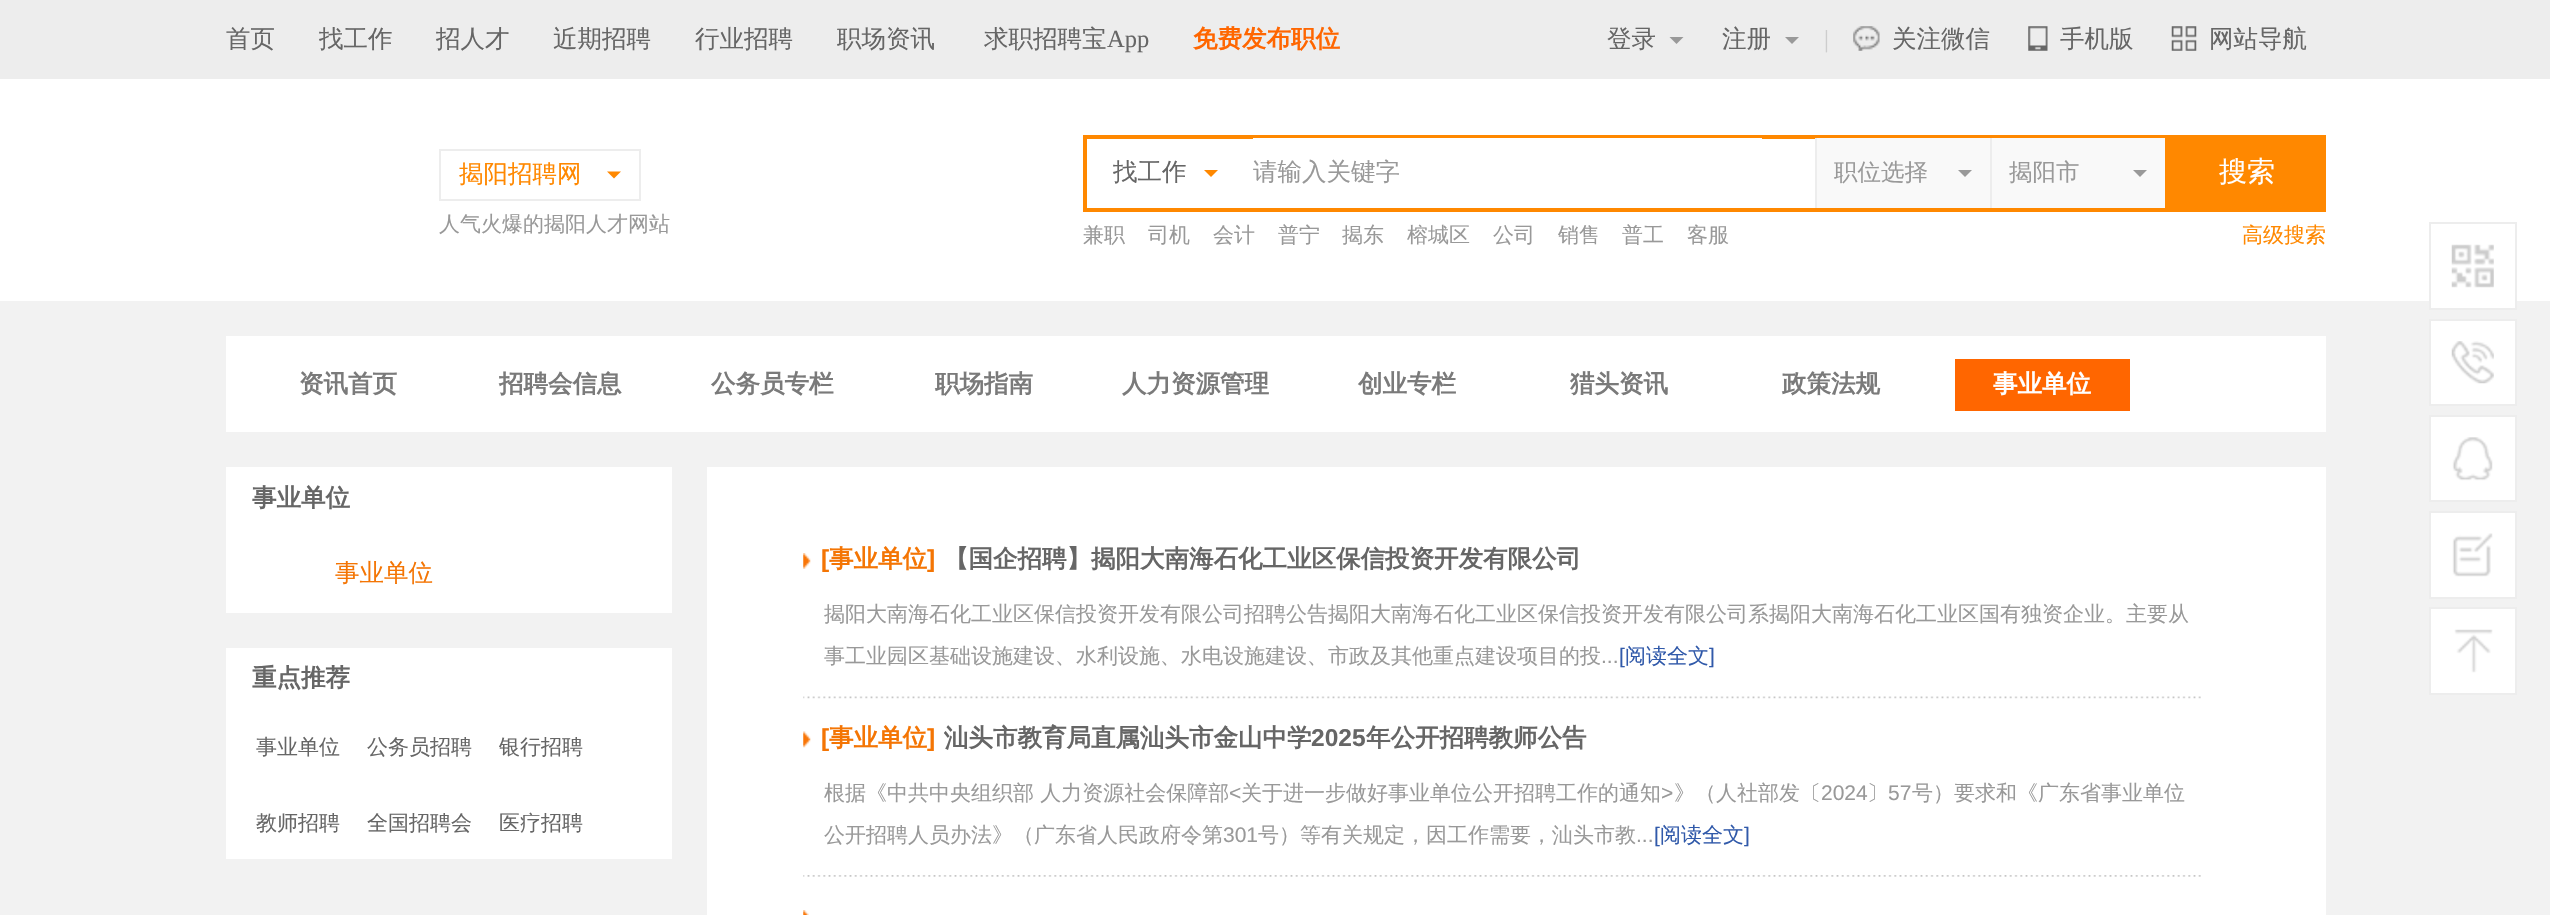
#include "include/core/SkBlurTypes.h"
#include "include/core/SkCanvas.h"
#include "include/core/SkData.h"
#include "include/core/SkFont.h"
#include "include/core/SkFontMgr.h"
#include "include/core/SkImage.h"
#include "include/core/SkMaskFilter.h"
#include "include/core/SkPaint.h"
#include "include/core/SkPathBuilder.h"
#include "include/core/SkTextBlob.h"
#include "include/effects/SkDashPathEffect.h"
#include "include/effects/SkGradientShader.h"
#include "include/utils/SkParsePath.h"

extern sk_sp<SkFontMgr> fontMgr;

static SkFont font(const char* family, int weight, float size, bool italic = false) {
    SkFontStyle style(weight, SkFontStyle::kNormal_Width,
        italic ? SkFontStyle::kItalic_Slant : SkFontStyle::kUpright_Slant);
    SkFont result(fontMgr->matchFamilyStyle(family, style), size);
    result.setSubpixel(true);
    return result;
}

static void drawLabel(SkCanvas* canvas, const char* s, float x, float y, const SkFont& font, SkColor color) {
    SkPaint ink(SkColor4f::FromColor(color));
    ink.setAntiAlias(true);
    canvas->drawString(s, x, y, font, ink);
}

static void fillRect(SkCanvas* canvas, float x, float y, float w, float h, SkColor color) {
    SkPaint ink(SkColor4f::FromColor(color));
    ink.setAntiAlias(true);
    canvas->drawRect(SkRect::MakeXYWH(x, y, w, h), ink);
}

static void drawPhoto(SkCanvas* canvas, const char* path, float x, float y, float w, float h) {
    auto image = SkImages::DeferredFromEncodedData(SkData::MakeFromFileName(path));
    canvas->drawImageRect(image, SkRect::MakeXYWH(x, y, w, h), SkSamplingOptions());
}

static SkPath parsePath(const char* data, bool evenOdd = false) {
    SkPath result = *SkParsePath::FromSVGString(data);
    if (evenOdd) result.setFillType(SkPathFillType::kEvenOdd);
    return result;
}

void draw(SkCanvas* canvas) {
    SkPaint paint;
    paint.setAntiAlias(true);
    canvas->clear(0xFFF2F2F2);
    fillRect(canvas, 0, 0, 2550, 79, 0xFFEDEDED);
    SkFont font1 = font("WenQuanYi Zen Hei", 500, 24.5f);
    drawLabel(canvas, "首页", 226, 47, font1, 0xFF666666);
    drawLabel(canvas, "找工作", 319, 47, font1, 0xFF666666);
    drawLabel(canvas, "招人才", 436, 47, font1, 0xFF666666);
    drawLabel(canvas, "近期招聘", 553, 47, font1, 0xFF666666);
    drawLabel(canvas, "行业招聘", 695, 47, font1, 0xFF666666);
    drawLabel(canvas, "职场资讯", 837, 47, font1, 0xFF666666);
    drawLabel(canvas, "求职招聘宝", 984, 47, font1, 0xFF666666);
    SkFont font2 = font("Liberation Serif", 400, 24.5f);
    drawLabel(canvas, "App", 1107, 47, font2, 0xFF666666);
    SkFont font3 = font("WenQuanYi Zen Hei", 700, 24.5f);
    drawLabel(canvas, "免费发布职位", 1193, 47, font3, 0xFFFF6600);
    drawLabel(canvas, "登录", 1607, 47, font1, 0xFF666666);
    paint.setColor(0xFF999999);
    canvas->drawPath(parsePath("M1669.5 37H1683.5L1676.5 44Z"), paint);
    drawLabel(canvas, "注册", 1722, 47, font1, 0xFF666666);
    canvas->drawPath(parsePath("M1785 37H1799L1792 44Z"), paint);
    drawLabel(canvas, "|", 1824, 47, font2, 0xFFCDCDCD);
    drawPhoto(canvas, "assets/img1.png", 1853, 26, 27, 25);
    drawLabel(canvas, "关注微信", 1892, 47, font1, 0xFF666666);
    drawPhoto(canvas, "assets/img2.png", 2028, 26, 20, 25);
    drawLabel(canvas, "手机版", 2060, 47, font1, 0xFF666666);
    drawPhoto(canvas, "assets/img3.png", 2171, 26, 26, 25);
    drawLabel(canvas, "网站导航", 2209, 47, font1, 0xFF666666);
    fillRect(canvas, 0, 79, 2550, 222, 0xFFFFFFFF);
    paint.setStroke(true);
    paint.setStrokeWidth(2);
    paint.setColor(0xFFEDEDED);
    canvas->drawRect(SkRect::MakeXYWH(440, 150, 200, 50), paint);
    drawLabel(canvas, "揭阳招聘网", 459, 182, font1, 0xFFFF8800);
    paint.setStroke(false);
    paint.setColor(0xFFFF8800);
    canvas->drawPath(parsePath("M607 171.5H621L614 178.5Z"), paint);
    SkFont font4 = font("WenQuanYi Zen Hei", 500, 21);
    drawLabel(canvas, "人气火爆的揭阳人才网站", 439, 231, font4, 0xFF999999);
    paint.setStroke(true);
    paint.setStrokeWidth(4);
    canvas->drawRect(SkRect::MakeXYWH(1085, 137, 1081, 73), paint);
    drawLabel(canvas, "找工作", 1113, 180, font1, 0xFF666666);
    paint.setStroke(false);
    canvas->drawPath(parsePath("M1204 170H1218L1211 177Z"), paint);
    fillRect(canvas, 1253, 138, 509, 1, 0xFFFFFFFF);
    drawLabel(canvas, "请输入关键字", 1253, 180, font1, 0xFF999999);
    fillRect(canvas, 1817, 138, 173, 70, 0xFFF9F9F9);
    fillRect(canvas, 1815, 138, 2, 70, 0xFFEDEDED);
    SkFont font5 = font("WenQuanYi Zen Hei", 500, 23.5f);
    drawLabel(canvas, "职位选择", 1834, 180, font5, 0xFF999999);
    paint.setColor(0xFF999999);
    canvas->drawPath(parsePath("M1958 170H1972L1965 177Z"), paint);
    fillRect(canvas, 1992, 138, 173, 70, 0xFFF9F9F9);
    fillRect(canvas, 1990, 138, 2, 70, 0xFFEDEDED);
    drawLabel(canvas, "揭阳市", 2009, 180, font5, 0xFF999999);
    canvas->drawPath(parsePath("M2133 170H2147L2140 177Z"), paint);
    fillRect(canvas, 2168, 135, 158, 77, 0xFFFF8800);
    SkFont font6 = font("WenQuanYi Zen Hei", 500, 28);
    drawLabel(canvas, "搜索", 2219, 181, font6, 0xFFFFFFFF);
    drawLabel(canvas, "兼职", 1083, 242, font4, 0xFF999999);
    drawLabel(canvas, "司机", 1148, 242, font4, 0xFF999999);
    drawLabel(canvas, "会计", 1213, 242, font4, 0xFF999999);
    drawLabel(canvas, "普宁", 1278, 242, font4, 0xFF999999);
    drawLabel(canvas, "揭东", 1342, 242, font4, 0xFF999999);
    drawLabel(canvas, "榕城区", 1407, 242, font4, 0xFF999999);
    drawLabel(canvas, "公司", 1493, 242, font4, 0xFF999999);
    drawLabel(canvas, "销售", 1558, 242, font4, 0xFF999999);
    drawLabel(canvas, "普工", 1622, 242, font4, 0xFF999999);
    drawLabel(canvas, "客服", 1687, 242, font4, 0xFF999999);
    drawLabel(canvas, "高级搜索", 2242, 242, font4, 0xFFFF8800);
    fillRect(canvas, 226, 336, 2100, 96, 0xFFFFFFFF);
    drawLabel(canvas, "资讯首页", 299, 392, font3, 0xFF7A7A7A);
    drawLabel(canvas, "招聘会信息", 499, 392, font3, 0xFF7A7A7A);
    drawLabel(canvas, "公务员专栏", 711, 392, font3, 0xFF7A7A7A);
    drawLabel(canvas, "职场指南", 935, 392, font3, 0xFF7A7A7A);
    drawLabel(canvas, "人力资源管理", 1122, 392, font3, 0xFF7A7A7A);
    drawLabel(canvas, "创业专栏", 1358, 392, font3, 0xFF7A7A7A);
    drawLabel(canvas, "猎头资讯", 1570, 392, font3, 0xFF7A7A7A);
    drawLabel(canvas, "政策法规", 1782, 392, font3, 0xFF7A7A7A);
    fillRect(canvas, 1955, 359, 175, 52, 0xFFFF6600);
    drawLabel(canvas, "事业单位", 1993, 392, font3, 0xFFFFFFFF);
    fillRect(canvas, 2431, 301, 84, 7, 0xFFFFFFFF);
    paint.setStroke(true);
    paint.setStrokeWidth(2);
    paint.setColor(0xFFEDEDED);
    canvas->drawRect(SkRect::MakeXYWH(2430, 223, 86, 86), paint);
    drawPhoto(canvas, "assets/img4.png", 2451, 244, 43, 44);
    paint.setStroke(false);
    paint.setColor(0xFFFFFFFF);
    canvas->drawRect(SkRect::MakeXYWH(2430, 320, 86, 85), paint);
    paint.setStroke(true);
    paint.setColor(0xFFEDEDED);
    canvas->drawRect(SkRect::MakeXYWH(2430, 320, 86, 85), paint);
    drawPhoto(canvas, "assets/img5.png", 2451, 341, 43, 43);
    paint.setStroke(false);
    paint.setColor(0xFFFFFFFF);
    canvas->drawRect(SkRect::MakeXYWH(2430, 416, 86, 85), paint);
    paint.setStroke(true);
    paint.setColor(0xFFEDEDED);
    canvas->drawRect(SkRect::MakeXYWH(2430, 416, 86, 85), paint);
    drawPhoto(canvas, "assets/img6.png", 2452, 437, 41, 44);
    paint.setStroke(false);
    paint.setColor(0xFFFFFFFF);
    canvas->drawRect(SkRect::MakeXYWH(2430, 512, 86, 86), paint);
    paint.setStroke(true);
    paint.setColor(0xFFEDEDED);
    canvas->drawRect(SkRect::MakeXYWH(2430, 512, 86, 86), paint);
    drawPhoto(canvas, "assets/img7.png", 2452, 533, 41, 44);
    paint.setStroke(false);
    paint.setColor(0xFFFFFFFF);
    canvas->drawRect(SkRect::MakeXYWH(2430, 608, 86, 86), paint);
    paint.setStroke(true);
    paint.setColor(0xFFEDEDED);
    canvas->drawRect(SkRect::MakeXYWH(2430, 608, 86, 86), paint);
    drawPhoto(canvas, "assets/img8.png", 2454, 629, 39, 44);
    fillRect(canvas, 226, 467, 446, 146, 0xFFFFFFFF);
    drawLabel(canvas, "事业单位", 252, 506, font3, 0xFF666666);
    drawLabel(canvas, "事业单位", 335, 581, font1, 0xFFF47504);
    fillRect(canvas, 226, 648, 446, 211, 0xFFFFFFFF);
    drawLabel(canvas, "重点推荐", 252, 686, font3, 0xFF666666);
    drawLabel(canvas, "事业单位", 256, 754, font4, 0xFF666666);
    drawLabel(canvas, "公务员招聘", 367, 754, font4, 0xFF666666);
    drawLabel(canvas, "银行招聘", 499, 754, font4, 0xFF666666);
    drawLabel(canvas, "教师招聘", 256, 830, font4, 0xFF666666);
    drawLabel(canvas, "全国招聘会", 367, 830, font4, 0xFF666666);
    drawLabel(canvas, "医疗招聘", 499, 830, font4, 0xFF666666);
    fillRect(canvas, 707, 467, 1619, 448, 0xFFFFFFFF);
    drawPhoto(canvas, "assets/img9.png", 803, 696, 1398, 3);
    drawPhoto(canvas, "assets/img10.png", 803, 553, 8, 16);
    SkFont font7 = font("Liberation Sans", 700, 24.5f);
    drawLabel(canvas, "[", 821, 567, font7, 0xFFF47504);
    drawLabel(canvas, "事业单位", 829, 567, font3, 0xFFF47504);
    drawLabel(canvas, "]", 927, 567, font7, 0xFFF47504);
    drawLabel(canvas, "【国企招聘】揭阳大南海石化工业区保信投资开发有限公司", 944, 567, font3, 0xFF666666);
    drawLabel(canvas, "揭阳大南海石化工业区保信投资开发有限公司招聘公告揭阳大南海石化工业区保信投资开发有限公司系揭阳大南海石化工业区国有独资企业。主要从", 824, 621, font4, 0xFF999999);
    drawLabel(canvas, "事工业园区基础设施建设、水利设施、水电设施建设、市政及其他重点建设项目的投", 824, 663, font4, 0xFF999999);
    SkFont font8 = font("Liberation Sans", 400, 21);
    drawLabel(canvas, "...", 1601, 663, font8, 0xFF999999);
    drawLabel(canvas, "[", 1619, 663, font8, 0xFF315AAA);
    drawLabel(canvas, "阅读全文", 1625, 663, font4, 0xFF315AAA);
    drawLabel(canvas, "]", 1709, 663, font8, 0xFF315AAA);
    drawPhoto(canvas, "assets/img11.png", 803, 875, 1398, 2);
    drawPhoto(canvas, "assets/img12.png", 803, 731, 8, 17);
    drawLabel(canvas, "[", 821, 746, font7, 0xFFF47504);
    drawLabel(canvas, "事业单位", 829, 746, font3, 0xFFF47504);
    drawLabel(canvas, "]", 927, 746, font7, 0xFFF47504);
    drawLabel(canvas, "汕头市教育局直属汕头市金山中学", 944, 746, font3, 0xFF666666);
    drawLabel(canvas, "2025", 1311, 746, font7, 0xFF666666);
    drawLabel(canvas, "年公开招聘教师公告", 1366, 746, font3, 0xFF666666);
    drawLabel(canvas, "根据《中共中央组织部 人力资源社会保障部", 824, 800, font4, 0xFF999999);
    drawLabel(canvas, "<", 1229, 800, font8, 0xFF999999);
    drawLabel(canvas, "关于进一步做好事业单位公开招聘工作的通知", 1241, 800, font4, 0xFF999999);
    drawLabel(canvas, ">", 1661, 800, font8, 0xFF999999);
    drawLabel(canvas, "》（人社部发〔", 1674, 800, font4, 0xFF999999);
    drawLabel(canvas, "2024", 1821, 800, font8, 0xFF999999);
    drawLabel(canvas, "〕", 1867, 800, font4, 0xFF999999);
    drawLabel(canvas, "57", 1888, 800, font8, 0xFF999999);
    drawLabel(canvas, "号）要求和《广东省事业单位", 1912, 800, font4, 0xFF999999);
    drawLabel(canvas, "公开招聘人员办法》（广东省人民政府令第", 824, 842, font4, 0xFF999999);
    drawLabel(canvas, "301", 1223, 842, font8, 0xFF999999);
    drawLabel(canvas, "号）等有关规定，因工作需要，汕头市教", 1258, 842, font4, 0xFF999999);
    drawLabel(canvas, "...", 1636, 842, font8, 0xFF999999);
    drawLabel(canvas, "[", 1654, 842, font8, 0xFF315AAA);
    drawLabel(canvas, "阅读全文", 1660, 842, font4, 0xFF315AAA);
    drawLabel(canvas, "]", 1744, 842, font8, 0xFF315AAA);
    drawPhoto(canvas, "assets/img13.png", 803, 910, 6, 5);
}
